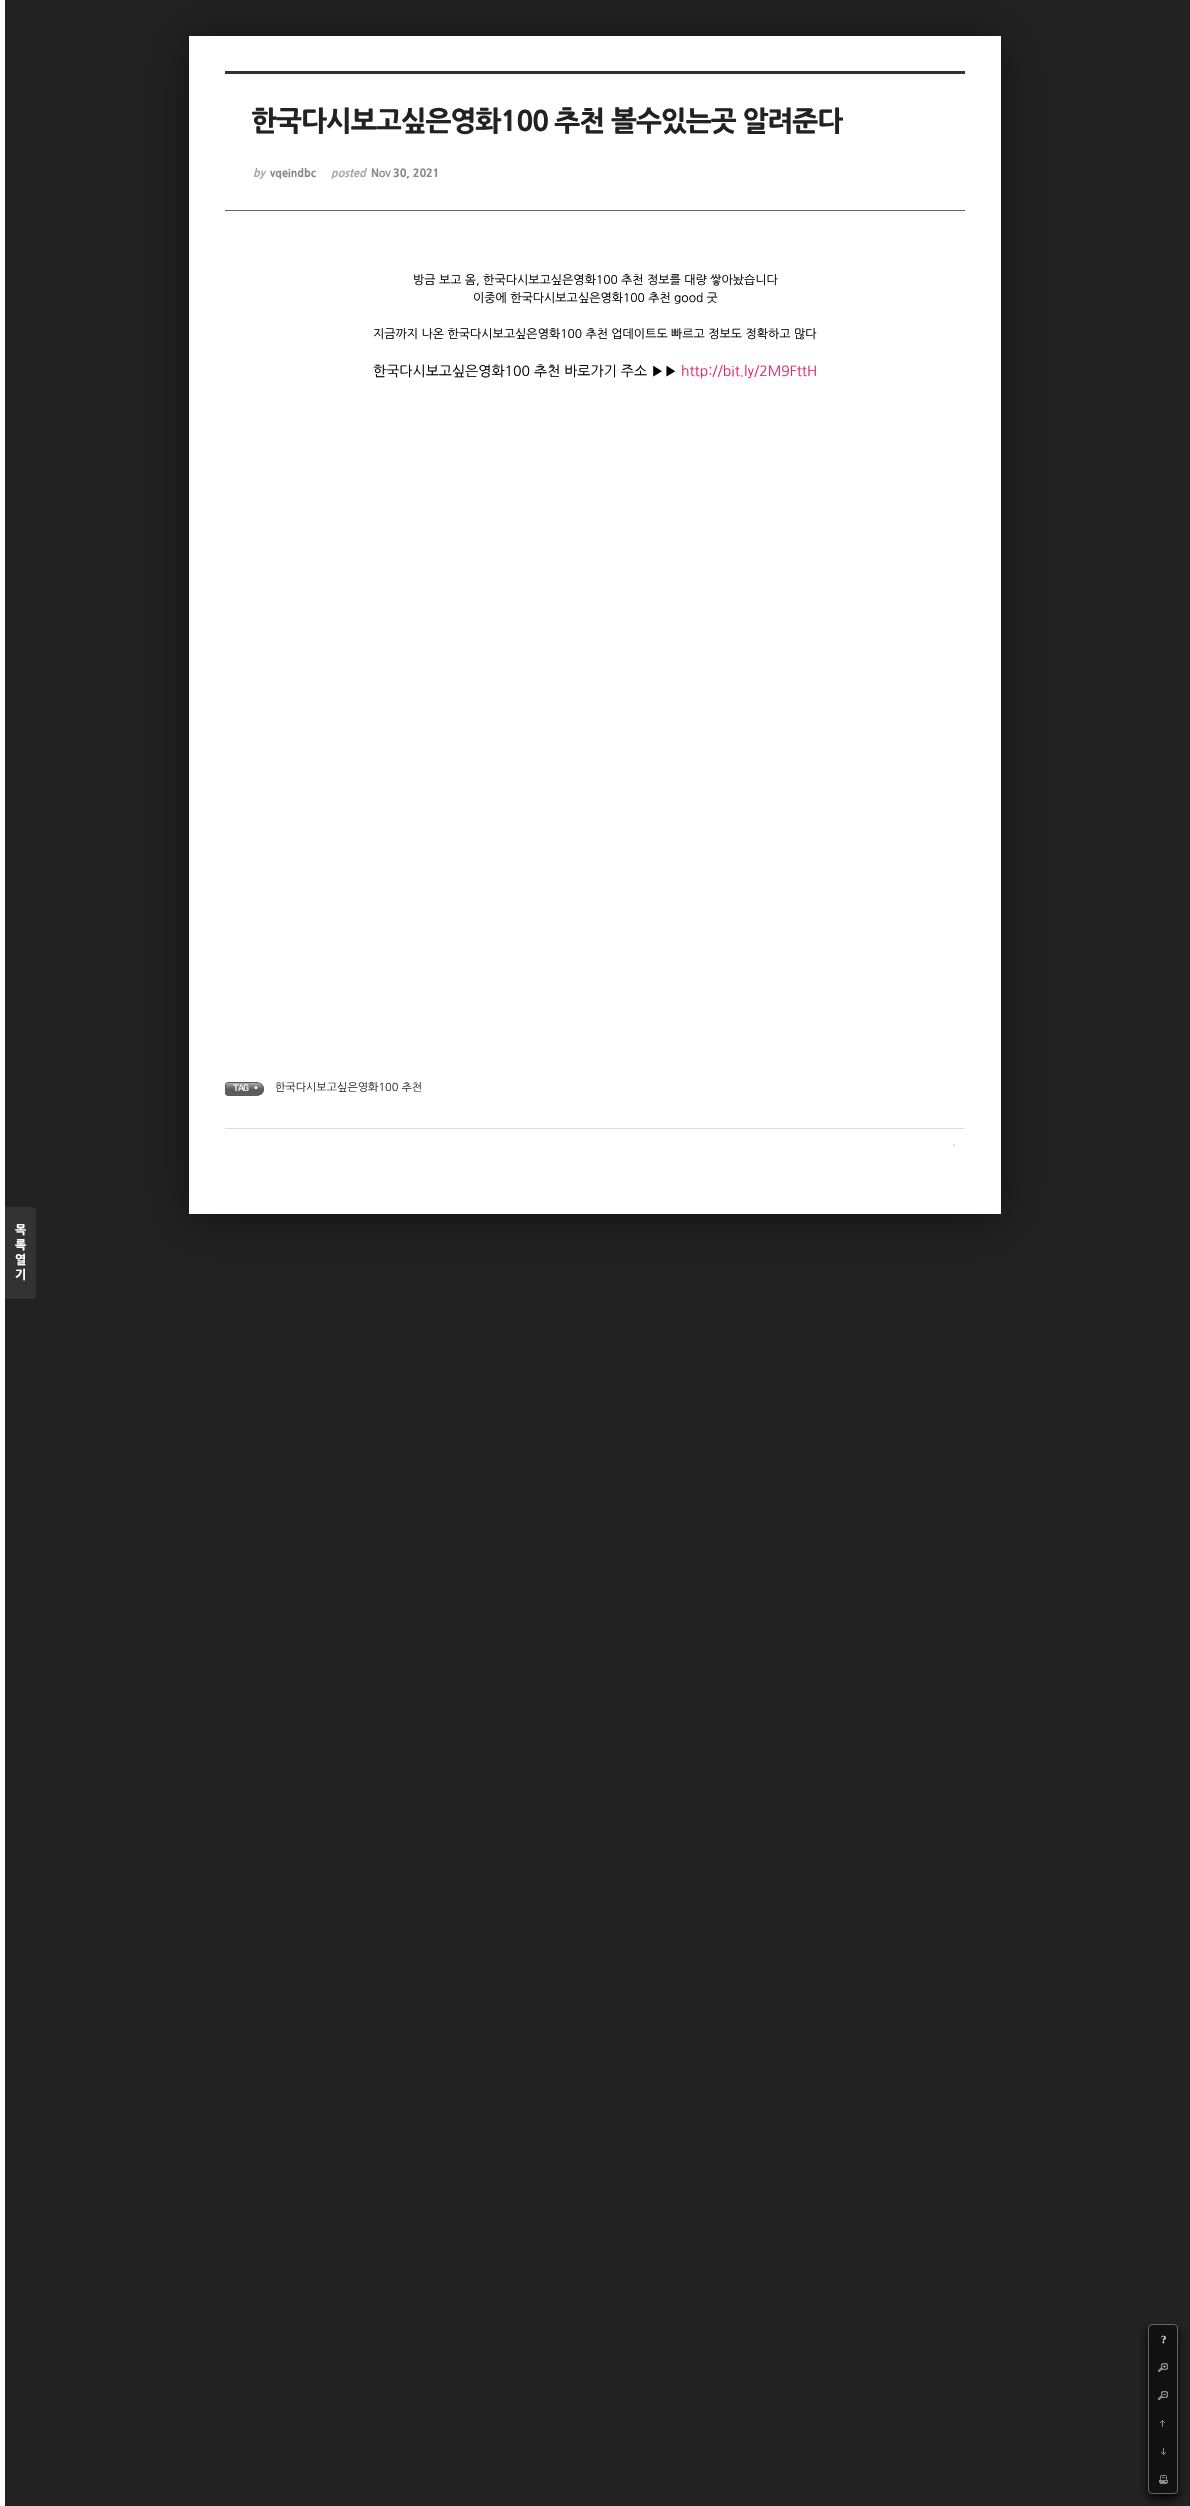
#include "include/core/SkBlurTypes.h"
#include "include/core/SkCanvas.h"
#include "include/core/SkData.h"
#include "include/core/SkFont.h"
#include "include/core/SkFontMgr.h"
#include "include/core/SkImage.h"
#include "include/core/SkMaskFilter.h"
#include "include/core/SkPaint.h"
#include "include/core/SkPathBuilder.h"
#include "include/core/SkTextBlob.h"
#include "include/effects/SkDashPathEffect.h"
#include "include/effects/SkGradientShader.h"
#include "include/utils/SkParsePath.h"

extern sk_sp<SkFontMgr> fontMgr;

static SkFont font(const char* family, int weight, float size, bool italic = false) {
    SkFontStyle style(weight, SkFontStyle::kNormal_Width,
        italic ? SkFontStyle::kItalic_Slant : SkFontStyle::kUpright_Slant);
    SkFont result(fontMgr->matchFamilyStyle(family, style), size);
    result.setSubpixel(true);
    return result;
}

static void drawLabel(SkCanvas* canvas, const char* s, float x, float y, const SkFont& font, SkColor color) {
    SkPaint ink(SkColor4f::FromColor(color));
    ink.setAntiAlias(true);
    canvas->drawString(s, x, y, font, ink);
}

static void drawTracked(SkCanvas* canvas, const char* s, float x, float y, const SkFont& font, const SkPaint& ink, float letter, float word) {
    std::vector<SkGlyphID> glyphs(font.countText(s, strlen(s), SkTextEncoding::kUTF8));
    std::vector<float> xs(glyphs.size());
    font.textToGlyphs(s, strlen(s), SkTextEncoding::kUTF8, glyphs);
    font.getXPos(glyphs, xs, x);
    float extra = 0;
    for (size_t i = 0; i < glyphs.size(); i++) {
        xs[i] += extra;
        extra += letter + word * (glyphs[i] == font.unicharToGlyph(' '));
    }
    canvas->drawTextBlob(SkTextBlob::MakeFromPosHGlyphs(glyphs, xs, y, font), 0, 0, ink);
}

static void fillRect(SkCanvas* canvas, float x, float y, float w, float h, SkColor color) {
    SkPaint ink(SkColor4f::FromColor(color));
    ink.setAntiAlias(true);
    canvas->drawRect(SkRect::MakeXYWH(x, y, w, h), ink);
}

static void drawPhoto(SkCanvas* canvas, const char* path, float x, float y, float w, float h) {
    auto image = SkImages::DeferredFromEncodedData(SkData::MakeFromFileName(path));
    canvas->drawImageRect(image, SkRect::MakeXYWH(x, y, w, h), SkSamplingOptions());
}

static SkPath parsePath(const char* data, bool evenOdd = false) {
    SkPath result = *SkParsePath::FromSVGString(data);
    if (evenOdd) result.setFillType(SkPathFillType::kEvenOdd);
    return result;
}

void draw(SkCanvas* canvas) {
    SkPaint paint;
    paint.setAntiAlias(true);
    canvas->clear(0xFF222222);
    paint.setColor(0x80000000);
    paint.setMaskFilter(SkMaskFilter::MakeBlur(kNormal_SkBlurStyle, 24));
    canvas->drawRect(SkRect::MakeXYWH(189, 40, 812, 1178), paint);
    paint.setMaskFilter(nullptr);
    fillRect(canvas, 189, 36, 812, 1178, 0xFFFFFFFF);
    fillRect(canvas, 0, 0, 5, 2506, 0xFFFFFFFF);
    paint.setColor(0xFF333333);
    canvas->drawPath(parsePath("M5 1207H32C34 1207 36 1209 36 1211V1295C36 1297 34 1299 32 1299H5Z"), paint);
    SkFont font1 = font("NanumGothic", 800, 12);
    drawLabel(canvas, "목", 15, 1234, font1, 0xFFFFFFFF);
    drawLabel(canvas, "록", 15, 1249, font1, 0xFFFFFFFF);
    drawLabel(canvas, "열", 15, 1264, font1, 0xFFFFFFFF);
    drawLabel(canvas, "기", 15, 1279, font1, 0xFFFFFFFF);
    fillRect(canvas, 225, 71, 740, 3, 0xFF333333);
    fillRect(canvas, 225, 210, 740, 1, 0xFF666666);
    SkFont font2 = font("NanumGothic", 800, 27.6f);
    paint.setColor(0xFF222222);
    drawTracked(canvas, "한국다시보고싶은영화100 추천 볼수있는곳 알려준다", 251, 131, font2, paint, -1, 0);
    SkFont font3 = font("NanumGothic", 800, 11, true);
    drawLabel(canvas, "by", 253, 177, font3, 0xFFAAAAAA);
    SkFont font4 = font("NanumGothic", 800, 11);
    drawLabel(canvas, "vqeindbc", 270, 177, font4, 0xFF888888);
    drawLabel(canvas, "posted", 331, 177, font3, 0xFFAAAAAA);
    drawLabel(canvas, "N", 371, 177, font4, 0xFF888888);
    SkFont font5 = font("NanumGothic", 800, 8);
    drawLabel(canvas, "OV", 379, 177, font5, 0xFF888888);
    drawLabel(canvas, "30, 2021", 393, 177, font4, 0xFF888888);
    paint.setColor(0xE6000000);
    paint.setMaskFilter(SkMaskFilter::MakeBlur(kNormal_SkBlurStyle, 5));
    canvas->drawRoundRect(SkRect::MakeXYWH(1148, 2329, 30, 170), 4, 4, paint);
    paint.setMaskFilter(nullptr);
    paint.setColor(0xFF111111);
    canvas->drawRoundRect(SkRect::MakeXYWH(1148.5f, 2324.5f, 29, 169), 3.5f, 3.5f, paint);
    paint.setStroke(true);
    paint.setStrokeWidth(1);
    paint.setColor(0xFF666666);
    canvas->drawRoundRect(SkRect::MakeXYWH(1148.5f, 2324.5f, 29, 169), 3.5f, 3.5f, paint);
    SkFont font6 = font("Liberation Serif", 700, 11);
    paint.setStroke(false);
    paint.setColor(0xFFDDDDDD);
    drawTracked(canvas, "?", 1161, 2343, font6, paint, -1, 0);
    drawPhoto(canvas, "assets/img1.png", 1158, 2363, 10, 9);
    drawPhoto(canvas, "assets/img2.png", 1158, 2391, 10, 9);
    drawPhoto(canvas, "assets/img3.png", 1160, 2420, 5, 7);
    drawPhoto(canvas, "assets/img4.png", 1161, 2448, 5, 7);
    drawPhoto(canvas, "assets/img5.png", 1159, 2475, 9, 9);
    SkFont font7 = font("NanumGothic", 400, 12);
    drawLabel(canvas, "방금 보고 옴, 한국다시보고싶은영화100 추천 정보를 대량 쌓아놨습니다", 413, 284, font7, 0xFF000000);
    drawLabel(canvas, "이중에 한국다시보고싶은영화100 추천 good 굿", 473, 302, font7, 0xFF000000);
    drawLabel(canvas, "지금까지 나온 한국다시보고싶은영화100 추천 업데이트도 빠르고 정보도 정확하고 많다", 373, 338, font7, 0xFF000000);
    SkFont font8 = font("NanumGothic", 400, 14);
    drawLabel(canvas, "한국다시보고싶은영화100 추천 바로가기 주소 ▶▶", 373, 376, font8, 0xFF000000);
    drawLabel(canvas, "http://bit.ly/2M9FttH", 681, 376, font8, 0xFFE12165);
    canvas->save();
    canvas->clipPath(parsePath("M228 1082H257C261 1082 264 1085 264 1089C264 1093 261 1096 257 1096H228C226.5 1096 225 1094.5 225 1093V1085C225 1083.5 226.5 1082 228 1082Z"), true);
    {
        const SkColor colors[] = {0xFFFFFFFF, 0xFF5C5C5C};
        const float stops[] = {0, 0.67f};
        const SkPoint ends[] = {{245, 1077}, {245, 1095}};
        paint.setShader(SkGradientShader::MakeLinear(ends, colors, stops, 2, SkTileMode::kClamp));
        paint.setAlpha(255);
    }
    canvas->drawRect(SkRect::MakeXYWH(225, 1083, 39, 12), paint);
    canvas->restore();
    paint.setStroke(true);
    paint.setShader(nullptr);
    paint.setColor(0xFF5C5C5C);
    canvas->drawPath(parsePath("M228 1082.5H257C260.5 1082.5 263.5 1085.5 263.5 1089C263.5 1092.5 260.5 1095.5 257 1095.5H228C226.5 1095.5 225.5 1094.5 225.5 1093V1085C225.5 1083.5 226.5 1082.5 228 1082.5Z"), paint);
    SkFont font9 = font("Liberation Mono", 400, 10);
    paint.setStroke(false);
    paint.setColor(0xFFFFFFFF);
    drawTracked(canvas, "TAG •", 233, 1091, font9, paint, -1, 0);
    SkFont font10 = font("NanumGothic", 400, 11);
    drawLabel(canvas, "한국다시보고싶은영화100 추천", 275, 1091, font10, 0xFF333333);
    fillRect(canvas, 225, 1128, 740, 1, 0xFFDDDDDD);
    paint.setColor(0xFFD3D3D3);
    canvas->drawCircle(954, 1145, 1, paint);
}
